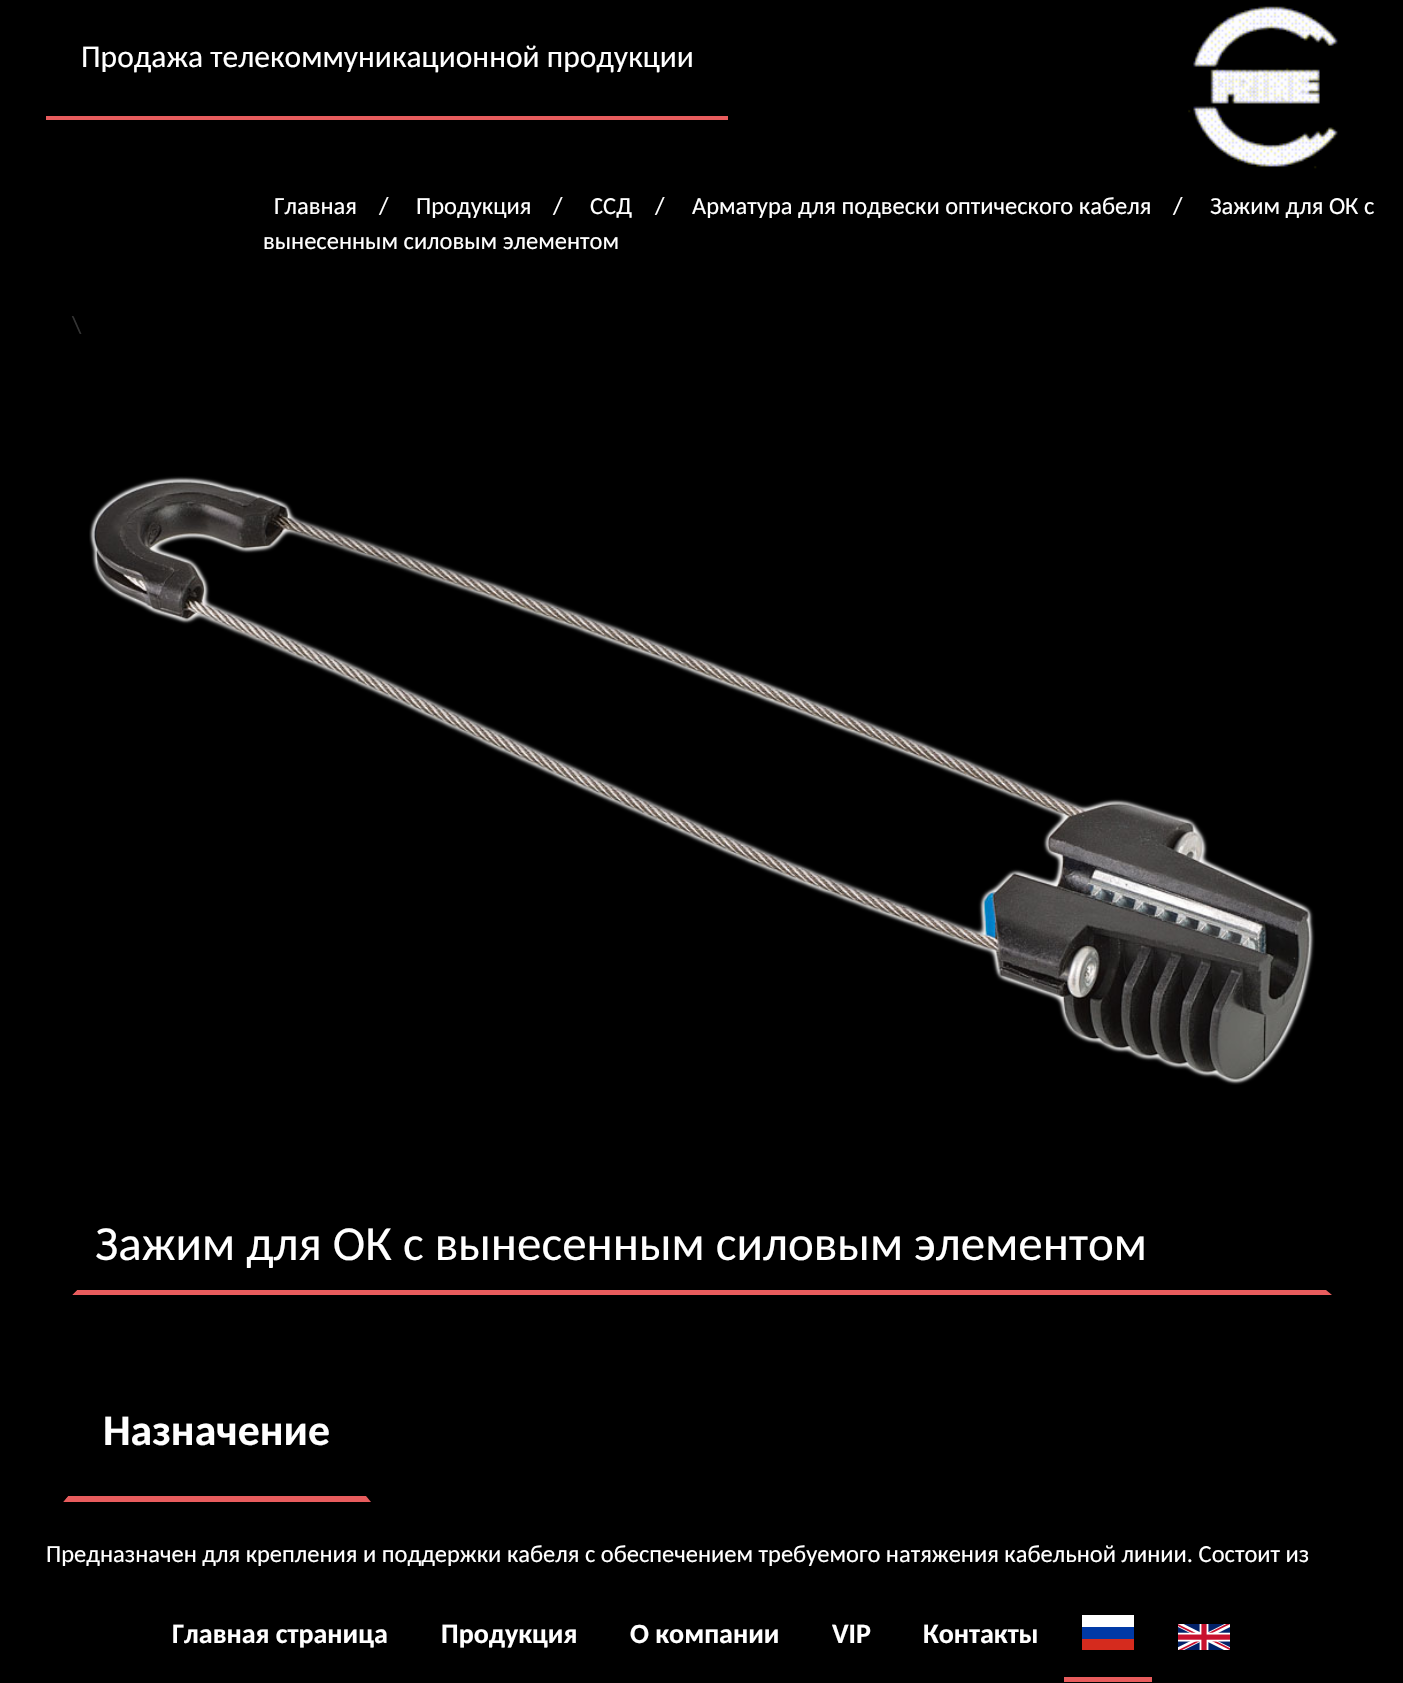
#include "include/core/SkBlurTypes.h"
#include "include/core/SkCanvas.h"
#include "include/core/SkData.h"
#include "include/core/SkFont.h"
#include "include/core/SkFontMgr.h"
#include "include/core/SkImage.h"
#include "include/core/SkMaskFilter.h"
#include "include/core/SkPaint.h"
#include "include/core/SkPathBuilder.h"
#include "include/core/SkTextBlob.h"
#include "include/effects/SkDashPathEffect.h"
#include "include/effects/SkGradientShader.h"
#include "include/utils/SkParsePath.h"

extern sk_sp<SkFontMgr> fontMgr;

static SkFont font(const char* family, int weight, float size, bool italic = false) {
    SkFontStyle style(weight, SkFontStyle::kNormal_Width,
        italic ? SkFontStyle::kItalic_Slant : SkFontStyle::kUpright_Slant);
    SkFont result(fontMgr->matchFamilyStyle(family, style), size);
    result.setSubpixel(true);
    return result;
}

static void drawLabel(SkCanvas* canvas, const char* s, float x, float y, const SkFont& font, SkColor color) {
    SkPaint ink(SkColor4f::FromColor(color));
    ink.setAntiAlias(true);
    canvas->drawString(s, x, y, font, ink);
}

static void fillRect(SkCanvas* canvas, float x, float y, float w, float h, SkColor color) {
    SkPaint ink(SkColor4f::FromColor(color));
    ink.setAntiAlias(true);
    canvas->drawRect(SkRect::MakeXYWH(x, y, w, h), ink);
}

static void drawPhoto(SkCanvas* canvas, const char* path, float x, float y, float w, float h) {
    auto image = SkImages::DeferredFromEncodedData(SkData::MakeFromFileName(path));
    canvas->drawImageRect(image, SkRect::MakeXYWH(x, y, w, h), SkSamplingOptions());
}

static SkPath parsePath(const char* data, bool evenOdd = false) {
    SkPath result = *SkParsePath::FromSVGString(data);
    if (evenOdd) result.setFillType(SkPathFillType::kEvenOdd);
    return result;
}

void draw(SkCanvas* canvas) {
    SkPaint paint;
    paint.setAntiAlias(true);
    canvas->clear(0xFF000000);
    fillRect(canvas, 46, 116, 682, 4, 0xFFE85C5D);
    SkFont font1 = font("Carlito", 400, 31.5f);
    drawLabel(canvas, "Продажа телекоммуникационной продукции", 81, 67, font1, 0xFFFFFFFF);
    drawPhoto(canvas, "assets/img1.png", 1188, 6, 150, 163);
    SkFont font2 = font("Carlito", 400, 24.5f);
    drawLabel(canvas, "Главная", 274, 214, font2, 0xFFFFFFFF);
    drawLabel(canvas, "/", 379, 214, font2, 0xFFFFFFFF);
    drawLabel(canvas, "Продукция", 416, 214, font2, 0xFFFFFFFF);
    drawLabel(canvas, "/", 553, 214, font2, 0xFFFFFFFF);
    drawLabel(canvas, "ССД", 590, 214, font2, 0xFFFFFFFF);
    drawLabel(canvas, "/", 655, 214, font2, 0xFFFFFFFF);
    drawLabel(canvas, "Арматура для подвески оптического кабеля", 692, 214, font2, 0xFFFFFFFF);
    drawLabel(canvas, "/", 1173, 214, font2, 0xFFFFFFFF);
    drawLabel(canvas, "Зажим для ОК с", 1210, 214, font2, 0xFFFFFFFF);
    drawLabel(canvas, "вынесенным силовым элементом", 263, 249, font2, 0xFFFFFFFF);
    drawLabel(canvas, "\\", 72, 333, font2, 0xFF333333);
    drawPhoto(canvas, "assets/img2.png", 89, 476, 1226, 609);
    paint.setColor(0xFFE85C5D);
    canvas->drawPath(parsePath("M1332 1295H72L77 1290H1326Z"), paint);
    paint.setColor(0xFF000000);
    canvas->drawPath(parsePath("M72 1295V1218H77V1290Z"), paint);
    SkFont font3 = font("Carlito", 400, 49);
    drawLabel(canvas, "Зажим для ОК с вынесенным силовым элементом", 95, 1260, font3, 0xFFFFFFFF);
    paint.setColor(0xFFE85C5D);
    canvas->drawPath(parsePath("M371 1502H63L68 1496H366Z"), paint);
    paint.setColor(0xFF000000);
    canvas->drawPath(parsePath("M63 1502V1365H68V1496Z"), paint);
    SkFont font4 = font("Carlito", 700, 43.75f);
    drawLabel(canvas, "Назначение", 103, 1445, font4, 0xFFFFFFFF);
    drawLabel(canvas, "Предназначен для крепления и поддержки кабеля с обеспечением требуемого натяжения кабельной линии. Состоит из", 46, 1562, font2, 0xFFFFFFFF);
    SkFont font5 = font("Carlito", 700, 28);
    drawLabel(canvas, "Главная страница", 172, 1643, font5, 0xFFFFFFFF);
    drawLabel(canvas, "Продукция", 441, 1643, font5, 0xFFFFFFFF);
    drawLabel(canvas, "О компании", 630, 1643, font5, 0xFFFFFFFF);
    drawLabel(canvas, "VIP", 832, 1643, font5, 0xFFFFFFFF);
    drawLabel(canvas, "Контакты", 923, 1643, font5, 0xFFFFFFFF);
    fillRect(canvas, 1064, 1677, 88, 5, 0xFFE85C5D);
    fillRect(canvas, 1082, 1615, 52, 12, 0xFFFFFFFF);
    fillRect(canvas, 1082, 1627, 52, 12, 0xFF0039A6);
    fillRect(canvas, 1082, 1639, 52, 11, 0xFFD52B1E);
    drawPhoto(canvas, "assets/img3.png", 1178, 1624, 52, 26);
}
